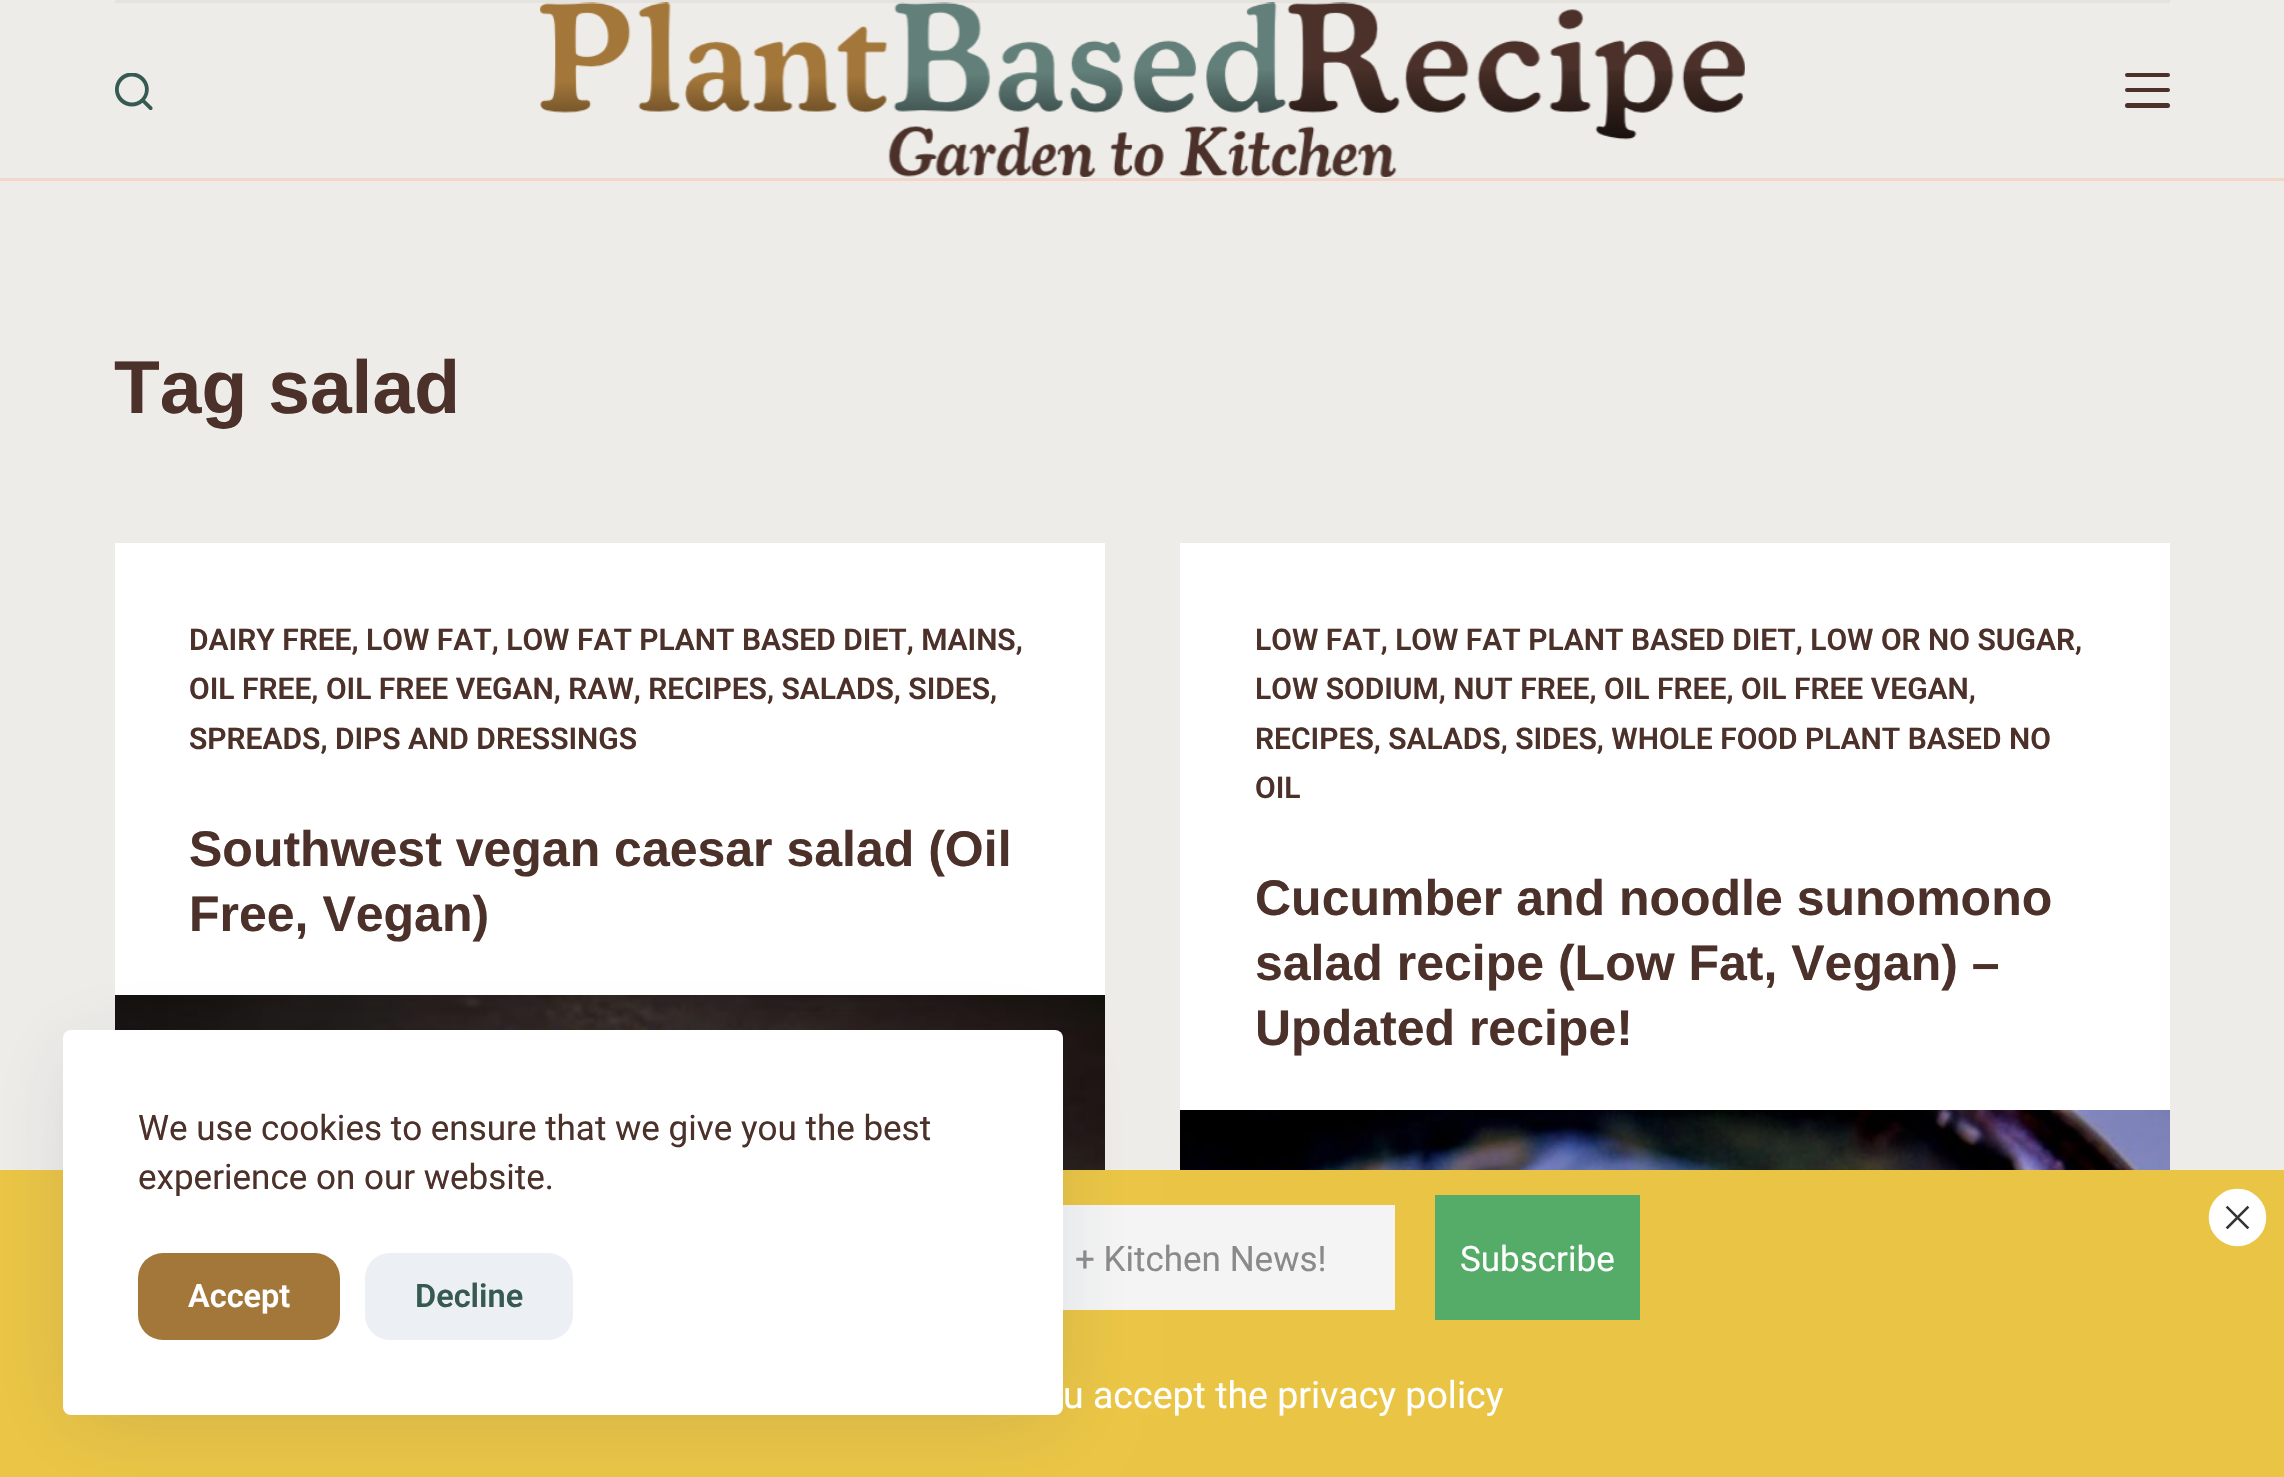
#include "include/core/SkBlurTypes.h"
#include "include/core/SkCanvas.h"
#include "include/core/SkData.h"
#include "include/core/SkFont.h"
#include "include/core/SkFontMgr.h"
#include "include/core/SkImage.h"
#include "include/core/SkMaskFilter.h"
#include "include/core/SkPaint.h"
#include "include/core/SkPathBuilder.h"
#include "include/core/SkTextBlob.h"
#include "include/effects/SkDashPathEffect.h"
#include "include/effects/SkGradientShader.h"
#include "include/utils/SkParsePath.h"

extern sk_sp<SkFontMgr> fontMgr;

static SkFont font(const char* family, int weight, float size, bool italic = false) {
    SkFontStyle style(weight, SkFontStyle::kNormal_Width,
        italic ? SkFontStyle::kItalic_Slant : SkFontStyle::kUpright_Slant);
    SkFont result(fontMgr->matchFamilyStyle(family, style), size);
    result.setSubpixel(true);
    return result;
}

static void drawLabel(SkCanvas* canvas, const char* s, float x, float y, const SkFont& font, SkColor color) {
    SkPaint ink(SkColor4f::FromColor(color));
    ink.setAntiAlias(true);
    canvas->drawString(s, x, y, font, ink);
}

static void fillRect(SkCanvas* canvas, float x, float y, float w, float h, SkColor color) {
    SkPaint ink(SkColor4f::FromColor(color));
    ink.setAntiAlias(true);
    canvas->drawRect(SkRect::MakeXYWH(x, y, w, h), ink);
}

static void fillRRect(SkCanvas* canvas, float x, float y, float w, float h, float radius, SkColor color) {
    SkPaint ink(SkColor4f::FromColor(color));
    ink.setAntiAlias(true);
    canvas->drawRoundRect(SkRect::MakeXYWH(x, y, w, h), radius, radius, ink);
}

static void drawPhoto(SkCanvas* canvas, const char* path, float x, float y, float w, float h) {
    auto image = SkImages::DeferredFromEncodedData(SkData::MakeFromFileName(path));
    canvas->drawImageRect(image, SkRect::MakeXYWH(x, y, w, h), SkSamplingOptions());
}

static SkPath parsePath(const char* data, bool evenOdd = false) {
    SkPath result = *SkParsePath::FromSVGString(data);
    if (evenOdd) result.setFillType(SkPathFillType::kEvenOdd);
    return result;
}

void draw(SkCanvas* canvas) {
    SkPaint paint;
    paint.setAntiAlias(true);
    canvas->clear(0xFFEEECE8);
    fillRect(canvas, 0, 178, 2284, 3, 0xFFF1D7C7);
    fillRect(canvas, 115, 0, 2055, 3, 0xFFE5E3E0);
    drawPhoto(canvas, "assets/img1.png", 115, 73, 38, 37);
    drawPhoto(canvas, "assets/img2.png", 540, 2, 1205, 175);
    fillRRect(canvas, 2125, 73, 45, 4, 2, 0xFF4B312A);
    fillRRect(canvas, 2125, 88, 45, 4, 2, 0xFF4B312A);
    fillRRect(canvas, 2125, 103, 45, 5, 2.5f, 0xFF4B312A);
    SkFont font1 = font("Liberation Sans", 700, 75);
    drawLabel(canvas, "Tag salad", 114, 413, font1, 0xFF4B312A);
    fillRect(canvas, 115, 543, 990, 452, 0xFFFFFFFF);
    SkFont font2 = font("Roboto", 600, 30);
    drawLabel(canvas, "DAIRY FREE, LOW FAT, LOW FAT PLANT BASED DIET, MAINS,", 189, 650, font2, 0xFF4B312A);
    drawLabel(canvas, "OIL FREE, OIL FREE VEGAN, RAW, RECIPES, SALADS, SIDES,", 189, 699, font2, 0xFF4B312A);
    drawLabel(canvas, "SPREADS, DIPS AND DRESSINGS", 189, 749, font2, 0xFF4B312A);
    SkFont font3 = font("Liberation Sans", 700, 50);
    drawLabel(canvas, "Southwest vegan caesar salad (Oil", 189, 866, font3, 0xFF4B312A);
    drawLabel(canvas, "Free, Vegan)", 189, 931, font3, 0xFF4B312A);
    drawPhoto(canvas, "assets/img3.png", 115, 995, 990, 175);
    fillRect(canvas, 1180, 543, 990, 567, 0xFFFFFFFF);
    drawLabel(canvas, "LOW FAT, LOW FAT PLANT BASED DIET, LOW OR NO SUGAR,", 1255, 650, font2, 0xFF4B312A);
    drawLabel(canvas, "LOW SODIUM, NUT FREE, OIL FREE, OIL FREE VEGAN,", 1255, 699, font2, 0xFF4B312A);
    drawLabel(canvas, "RECIPES, SALADS, SIDES, WHOLE FOOD PLANT BASED NO", 1255, 749, font2, 0xFF4B312A);
    drawLabel(canvas, "OIL", 1255, 798, font2, 0xFF4B312A);
    drawLabel(canvas, "Cucumber and noodle sunomono", 1255, 915, font3, 0xFF4B312A);
    drawLabel(canvas, "salad recipe (Low Fat, Vegan) –", 1255, 980, font3, 0xFF4B312A);
    drawLabel(canvas, "Updated recipe!", 1255, 1045, font3, 0xFF4B312A);
    drawPhoto(canvas, "assets/img4.png", 1180, 1110, 990, 60);
    fillRect(canvas, 0, 1170, 2284, 307, 0xFFEAC545);
    fillRect(canvas, 1063, 1205, 332, 105, 0xFFF4F4F4);
    paint.setColor(0x26223865);
    paint.setMaskFilter(SkMaskFilter::MakeBlur(kNormal_SkBlurStyle, 37.5f));
    canvas->drawRect(SkRect::MakeXYWH(75, 1055, 975, 360), paint);
    paint.setMaskFilter(nullptr);
    fillRRect(canvas, 63, 1030, 1000, 385, 8, 0xFFFFFFFF);
    SkFont font4 = font("Roboto", 400, 35);
    drawLabel(canvas, "We use cookies to ensure that we give you the best", 138, 1140, font4, 0xFF4B312A);
    drawLabel(canvas, "experience on our website.", 138, 1189, font4, 0xFF4B312A);
    fillRRect(canvas, 138, 1253, 202, 87, 25, 0xFFA3763A);
    SkFont font5 = font("Roboto", 600, 32.5f);
    drawLabel(canvas, "Accept", 188, 1307, font5, 0xFFFFFFFF);
    fillRRect(canvas, 365, 1253, 208, 87, 25, 0xFFECEFF3);
    drawLabel(canvas, "Decline", 415, 1307, font5, 0xFF365951);
    paint.setColor(0xFFFFFFFF);
    canvas->drawCircle(2237.5f, 1217.5f, 27.5f, paint);
    paint.setStroke(true);
    paint.setStrokeWidth(2.5f);
    canvas->drawCircle(2237.5f, 1217.5f, 27.5f, paint);
    paint.setStrokeCap(SkPaint::kSquare_Cap);
    paint.setColor(0xFF343434);
    canvas->drawPath(parsePath("M2247.5 1207.5L2227.5 1227.5M2247.5 1227.5L2227.5 1207.5"), paint);
    drawLabel(canvas, "+ Kitchen News!", 1075, 1271, font4, 0xFF8A8A8A);
    fillRect(canvas, 1435, 1195, 205, 125, 0xFF55AB68);
    drawLabel(canvas, "Subscribe", 1460, 1271, font4, 0xFFFFFFFF);
    SkFont font6 = font("Roboto", 400, 37.5f);
    drawLabel(canvas, "u accept the privacy policy", 1063, 1408, font6, 0xFFFFFFFF);
}
